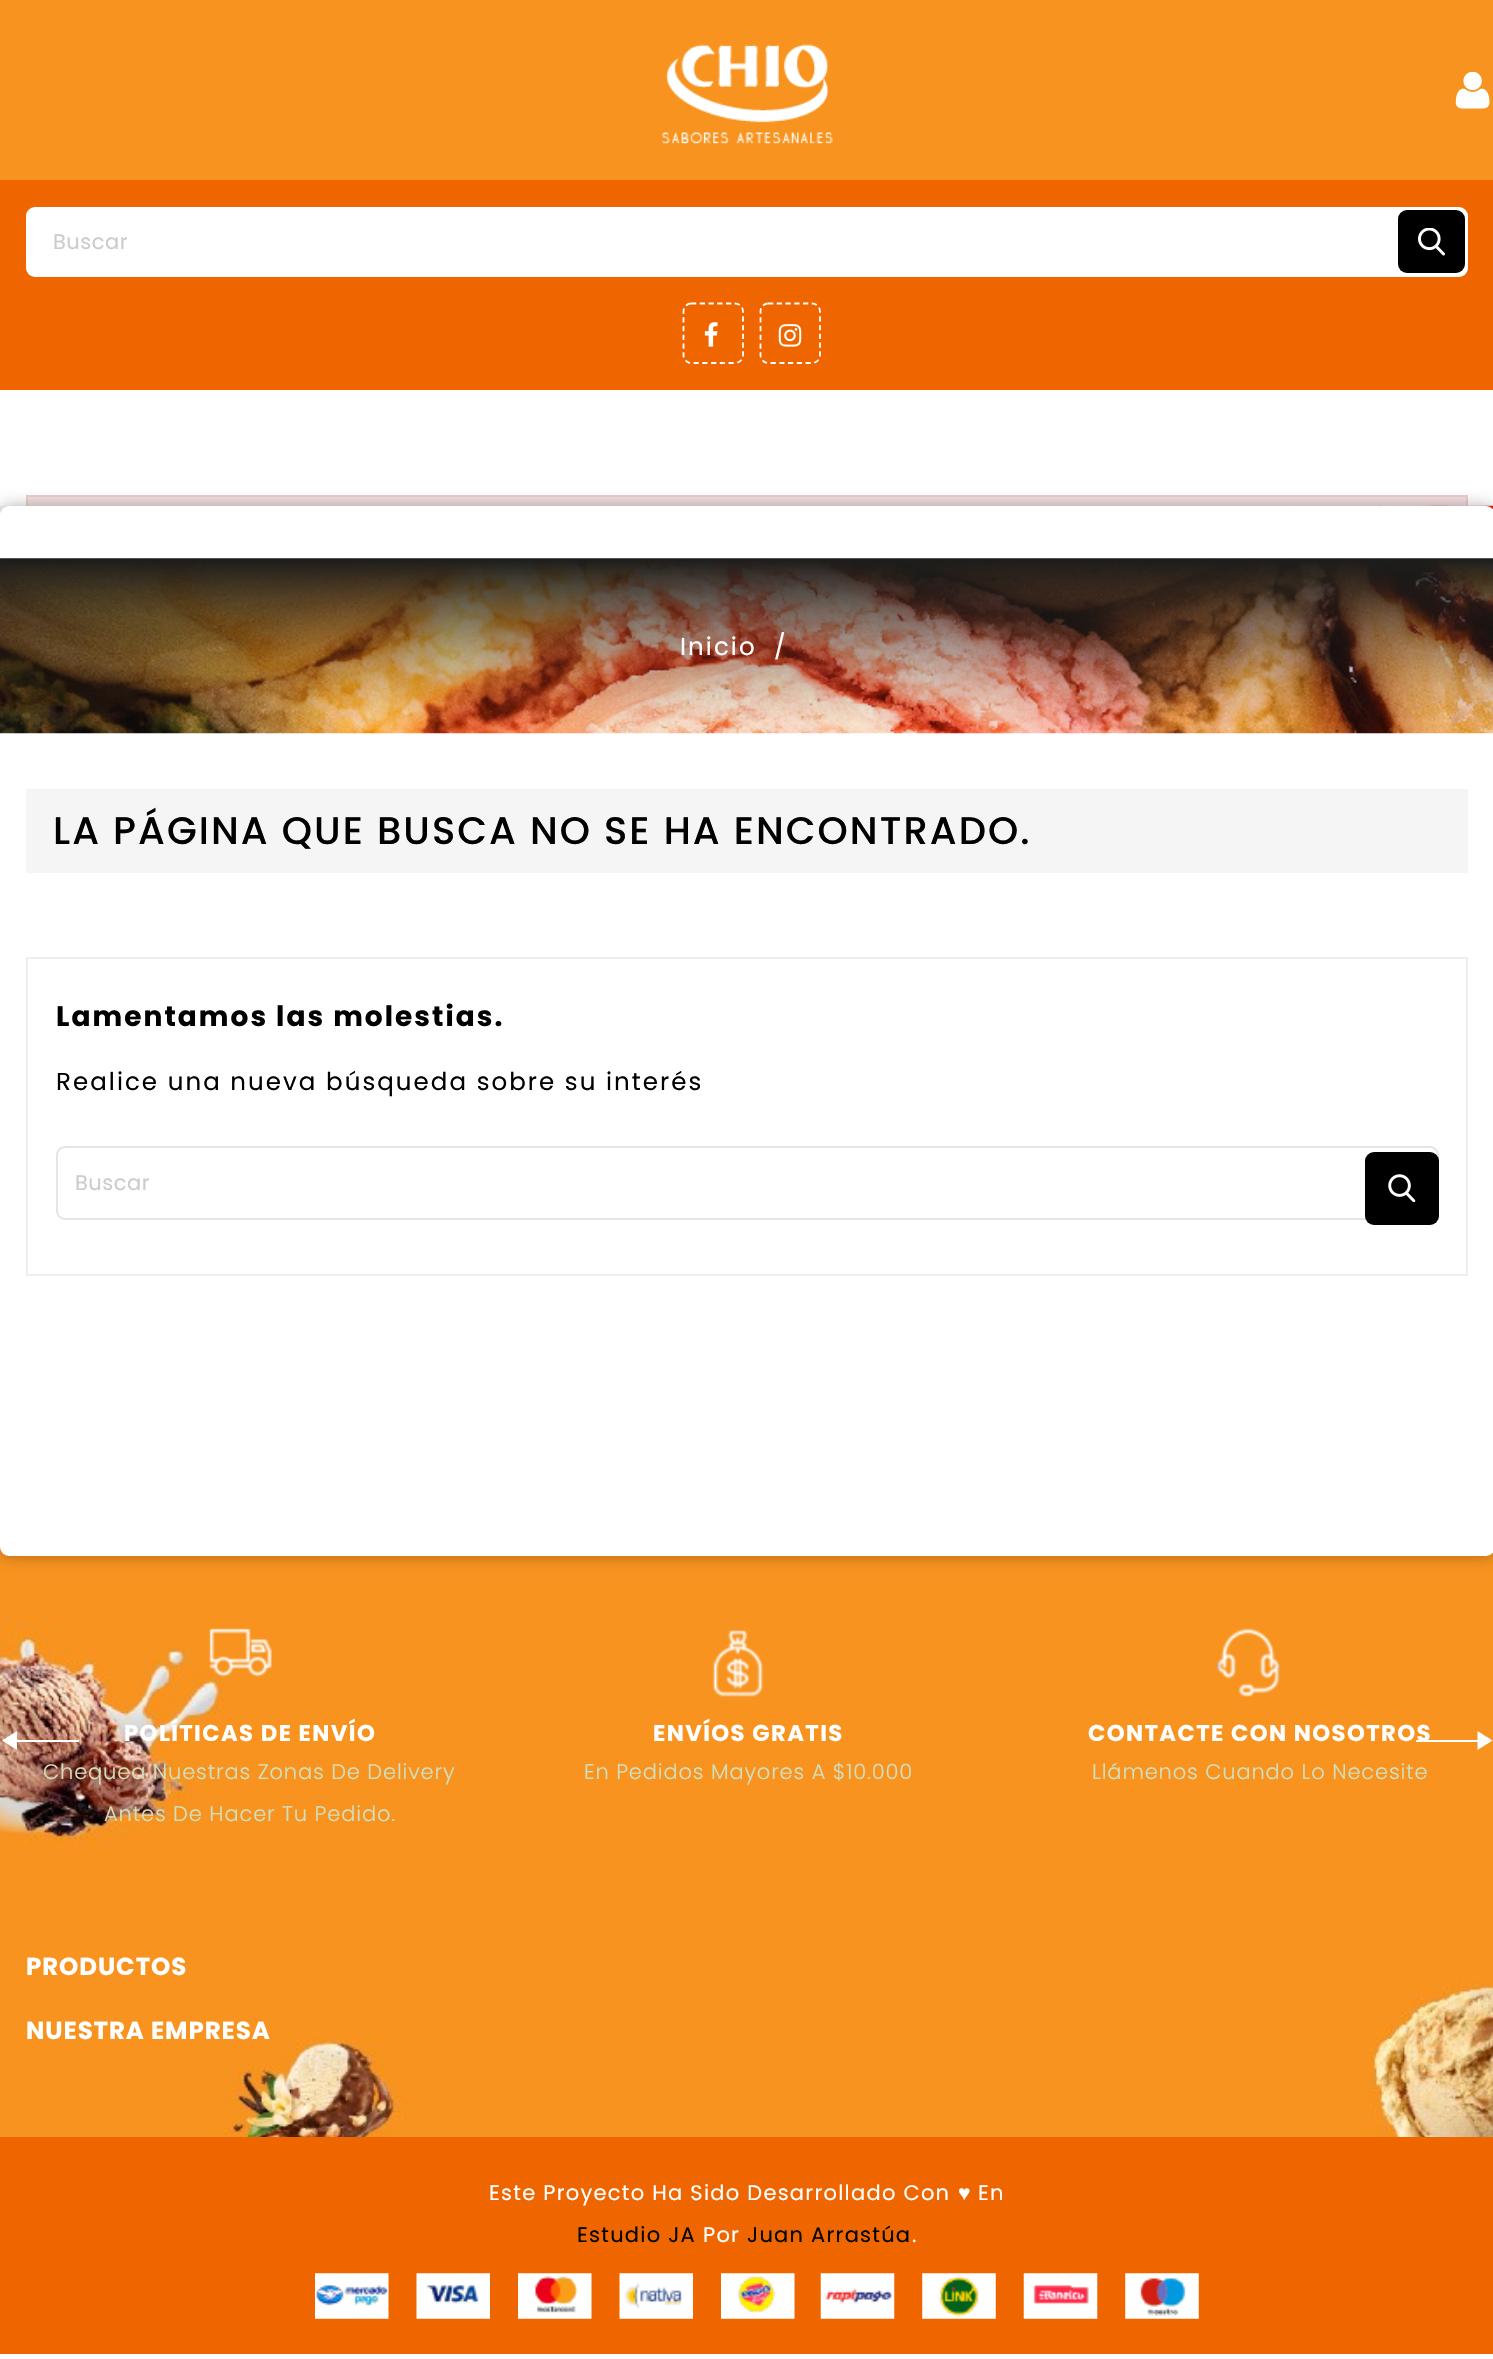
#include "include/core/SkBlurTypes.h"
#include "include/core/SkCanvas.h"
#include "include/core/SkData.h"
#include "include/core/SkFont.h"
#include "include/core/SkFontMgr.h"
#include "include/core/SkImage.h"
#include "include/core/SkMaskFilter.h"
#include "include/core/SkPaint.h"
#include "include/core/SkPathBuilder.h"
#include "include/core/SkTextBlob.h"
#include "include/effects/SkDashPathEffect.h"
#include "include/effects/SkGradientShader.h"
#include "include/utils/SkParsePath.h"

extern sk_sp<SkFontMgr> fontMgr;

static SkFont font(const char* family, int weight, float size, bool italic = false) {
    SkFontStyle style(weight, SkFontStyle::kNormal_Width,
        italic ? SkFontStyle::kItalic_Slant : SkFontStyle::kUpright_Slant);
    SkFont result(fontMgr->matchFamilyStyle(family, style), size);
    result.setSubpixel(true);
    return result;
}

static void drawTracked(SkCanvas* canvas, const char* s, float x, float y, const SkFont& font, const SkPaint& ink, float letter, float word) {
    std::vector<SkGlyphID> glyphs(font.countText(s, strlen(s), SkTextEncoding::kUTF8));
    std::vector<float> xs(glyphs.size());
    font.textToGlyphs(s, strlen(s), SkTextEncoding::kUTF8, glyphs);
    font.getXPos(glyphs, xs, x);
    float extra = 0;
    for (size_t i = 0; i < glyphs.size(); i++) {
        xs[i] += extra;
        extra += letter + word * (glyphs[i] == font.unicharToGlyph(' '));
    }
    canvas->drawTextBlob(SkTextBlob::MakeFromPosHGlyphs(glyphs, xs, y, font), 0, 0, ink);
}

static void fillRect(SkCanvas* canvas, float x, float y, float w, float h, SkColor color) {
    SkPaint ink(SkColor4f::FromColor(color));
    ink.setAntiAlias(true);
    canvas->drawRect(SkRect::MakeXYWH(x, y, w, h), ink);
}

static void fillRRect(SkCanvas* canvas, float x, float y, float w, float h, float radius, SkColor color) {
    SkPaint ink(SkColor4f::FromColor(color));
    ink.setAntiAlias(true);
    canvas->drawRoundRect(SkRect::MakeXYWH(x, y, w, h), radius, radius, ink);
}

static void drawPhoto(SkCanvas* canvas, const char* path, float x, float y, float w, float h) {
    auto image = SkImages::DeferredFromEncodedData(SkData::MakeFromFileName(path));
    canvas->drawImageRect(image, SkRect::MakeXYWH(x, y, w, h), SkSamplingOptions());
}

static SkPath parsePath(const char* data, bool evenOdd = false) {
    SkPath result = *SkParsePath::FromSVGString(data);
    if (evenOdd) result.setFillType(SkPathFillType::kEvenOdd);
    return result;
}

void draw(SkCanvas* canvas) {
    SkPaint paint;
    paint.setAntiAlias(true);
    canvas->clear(0xFFFFFFFF);
    fillRect(canvas, 0, 0, 1493, 180, 0xFFF7931E);
    drawPhoto(canvas, "assets/img1.png", 661, 44, 172, 100);
    drawPhoto(canvas, "assets/img2.png", 1455, 72, 35, 37);
    fillRect(canvas, 0, 180, 1493, 210, 0xFFEF6600);
    fillRRect(canvas, 26, 207, 1442, 70, 9, 0xFFFFFFFF);
    SkFont font1 = font("Poppins", 400, 21);
    paint.setColor(0xFFCCCCCC);
    drawTracked(canvas, "Buscar", 53, 249, font1, paint, 0.5f, 0);
    fillRRect(canvas, 1398, 210, 67, 63, 9, 0xFF000000);
    drawPhoto(canvas, "assets/img3.png", 1418, 228, 27, 28);
    paint.setStroke(true);
    paint.setStrokeWidth(1.8f);
    paint.setColor(0xFFFFFFFF);
    paint.setPathEffect(SkDashPathEffect::Make({{5.25f, 3.5f}}, 0));
    canvas->drawPath(parsePath("M691 303.5H735C739.5 303.5 743 307 743 311.5V355C743 359.5 739.5 363 735 363H691C687 363 683.5 359.5 683.5 355V311.5C683.5 307 687 303.5 691 303.5Z"), paint);
    paint.setPathEffect(nullptr);
    drawPhoto(canvas, "assets/img4.png", 704, 322, 14, 25);
    paint.setPathEffect(SkDashPathEffect::Make({{5.25f, 3.5f}}, 0));
    canvas->drawPath(parsePath("M768 303.5H812C816.5 303.5 820 307 820 311.5V355C820 359.5 816.5 363 812 363H768C764 363 760.5 359.5 760.5 355V311.5C760.5 307 764 303.5 768 303.5Z"), paint);
    paint.setPathEffect(nullptr);
    drawPhoto(canvas, "assets/img5.png", 778, 324, 24, 23);
    fillRect(canvas, 28, 497, 1438, 9, 0xFFF2DEDE);
    paint.setStrokeWidth(2);
    paint.setColor(0xFFEBCCCC);
    canvas->drawRect(SkRect::MakeXYWH(27, 496, 1440, 86), paint);
    drawPhoto(canvas, "assets/img6.png", 0, 505, 1493, 10);
    drawPhoto(canvas, "assets/img9.png", 0, 1547, 1493, 590);
    paint.setStroke(false);
    paint.setColor(0x4D000000);
    paint.setMaskFilter(SkMaskFilter::MakeBlur(kNormal_SkBlurStyle, 8));
    canvas->drawRoundRect(SkRect::MakeXYWH(0, 506, 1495, 1050), 9, 9, paint);
    paint.setMaskFilter(nullptr);
    fillRRect(canvas, 0, 506, 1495, 1050, 9, 0xFFFFFFFF);
    drawPhoto(canvas, "assets/img7.png", 0, 558, 1493, 176);
    SkFont font2 = font("Poppins", 400, 24.5f);
    paint.setColor(0xFFFFFFFF);
    drawTracked(canvas, "Inicio", 680, 655, font2, paint, 2.05f, 0);
    drawTracked(canvas, "/", 774, 655, font2, paint, 2.05f, 0);
    fillRect(canvas, 26, 789, 1442, 84, 0xFFF5F5F5);
    SkFont font3 = font("Poppins", 500, 38.5f);
    paint.setColor(0xFF000000);
    drawTracked(canvas, "LA PÁGINA QUE BUSCA NO SE HA ENCONTRADO.", 53, 844, font3, paint, 2.05f, 0);
    paint.setStroke(true);
    paint.setColor(0xFFEEEEEE);
    canvas->drawRect(SkRect::MakeXYWH(27, 958, 1440, 317), paint);
    SkFont font4 = font("Poppins", 700, 28);
    paint.setStroke(false);
    paint.setColor(0xFF000000);
    drawTracked(canvas, "Lamentamos las molestias.", 56, 1026, font4, paint, 2.05f, 0);
    drawTracked(canvas, "Realice una nueva búsqueda sobre su interés", 56, 1090, font2, paint, 2.05f, 0);
    paint.setStroke(true);
    paint.setColor(0xFFE5E5E5);
    canvas->drawRoundRect(SkRect::MakeXYWH(57, 1147, 1381, 72), 8, 8, paint);
    paint.setStroke(false);
    paint.setColor(0xFFCCCCCC);
    drawTracked(canvas, "Buscar", 75, 1190, font1, paint, 0.5f, 0);
    fillRRect(canvas, 1365, 1152, 74, 73, 9, 0xFF000000);
    drawPhoto(canvas, "assets/img8.png", 1388, 1174, 28, 28);
    drawPhoto(canvas, "assets/img10.png", 209, 1628, 63, 50);
    SkFont font5 = font("Poppins", 700, 22.75f);
    paint.setColor(0xFFFFFFFF);
    drawTracked(canvas, "POLÍTICAS DE ENVÍO", 124, 1741, font5, paint, 1.4f, 0);
    SkFont font6 = font("Poppins", 300, 21);
    paint.setColor(0xFFD0E0BE);
    drawTracked(canvas, "Chequea Nuestras Zonas De Delivery", 43, 1779, font6, paint, 0.85f, 0);
    drawTracked(canvas, "Antes De Hacer Tu Pedido.", 104, 1821, font6, paint, 0.85f, 0);
    drawPhoto(canvas, "assets/img11.png", 712, 1630, 52, 67);
    paint.setColor(0xFFFFFFFF);
    drawTracked(canvas, "ENVÍOS GRATIS", 653, 1741, font5, paint, 1.4f, 0);
    paint.setColor(0xFFD0E0BE);
    drawTracked(canvas, "En Pedidos Mayores A $10.000", 584, 1779, font6, paint, 0.85f, 0);
    drawPhoto(canvas, "assets/img12.png", 1215, 1628, 66, 69);
    paint.setColor(0xFFFFFFFF);
    drawTracked(canvas, "CONTACTE CON NOSOTROS", 1088, 1741, font5, paint, 1.4f, 0);
    paint.setColor(0xFFD0E0BE);
    drawTracked(canvas, "Llámenos Cuando Lo Necesite", 1092, 1779, font6, paint, 0.85f, 0);
    paint.setColor(0xFFFFFFFF);
    canvas->drawPath(parsePath("M17 1731V1750L2 1740.5Z"), paint);
    fillRect(canvas, 16, 1740, 63, 2, 0xFFFFFFFF);
    canvas->drawPath(parsePath("M1477.5 1731V1750L1492.5 1740.5Z"), paint);
    fillRect(canvas, 1416, 1740, 63, 2, 0xFFFFFFFF);
    SkFont font7 = font("Poppins", 700, 24.5f);
    drawTracked(canvas, "PRODUCTOS", 26, 1975, font7, paint, 0.9f, 0);
    drawTracked(canvas, "NUESTRA EMPRESA", 26, 2039, font7, paint, 0.9f, 0);
    fillRect(canvas, 0, 2137, 1493, 217, 0xFFEF6600);
    drawTracked(canvas, "Este Proyecto Ha Sido Desarrollado Con", 489, 2200, font1, paint, 1.25f, 0);
    SkFont font8 = font("Liberation Sans", 400, 21);
    drawTracked(canvas, "♥", 958, 2200, font8, paint, 1.25f, 0);
    drawTracked(canvas, "En", 978, 2200, font1, paint, 1.25f, 0);
    paint.setColor(0xFF000000);
    drawTracked(canvas, "Estudio JA", 577, 2242, font1, paint, 1.25f, 0);
    paint.setColor(0xFFFFFFFF);
    drawTracked(canvas, "Por", 703, 2242, font1, paint, 1.25f, 0);
    paint.setColor(0xFF000000);
    drawTracked(canvas, "Juan Arrastúa", 747, 2242, font1, paint, 1.25f, 0);
    paint.setColor(0xFFFFFFFF);
    drawTracked(canvas, ".", 912, 2242, font1, paint, 1.25f, 0);
    drawPhoto(canvas, "assets/img13.png", 315, 2273, 74, 46);
    drawPhoto(canvas, "assets/img14.png", 416, 2273, 74, 46);
    drawPhoto(canvas, "assets/img15.png", 518, 2273, 74, 46);
    drawPhoto(canvas, "assets/img16.png", 619, 2273, 74, 46);
    drawPhoto(canvas, "assets/img17.png", 721, 2273, 74, 46);
    drawPhoto(canvas, "assets/img18.png", 820, 2273, 75, 46);
    drawPhoto(canvas, "assets/img19.png", 922, 2273, 74, 46);
    drawPhoto(canvas, "assets/img20.png", 1023, 2273, 75, 46);
    drawPhoto(canvas, "assets/img21.png", 1125, 2273, 74, 46);
}
